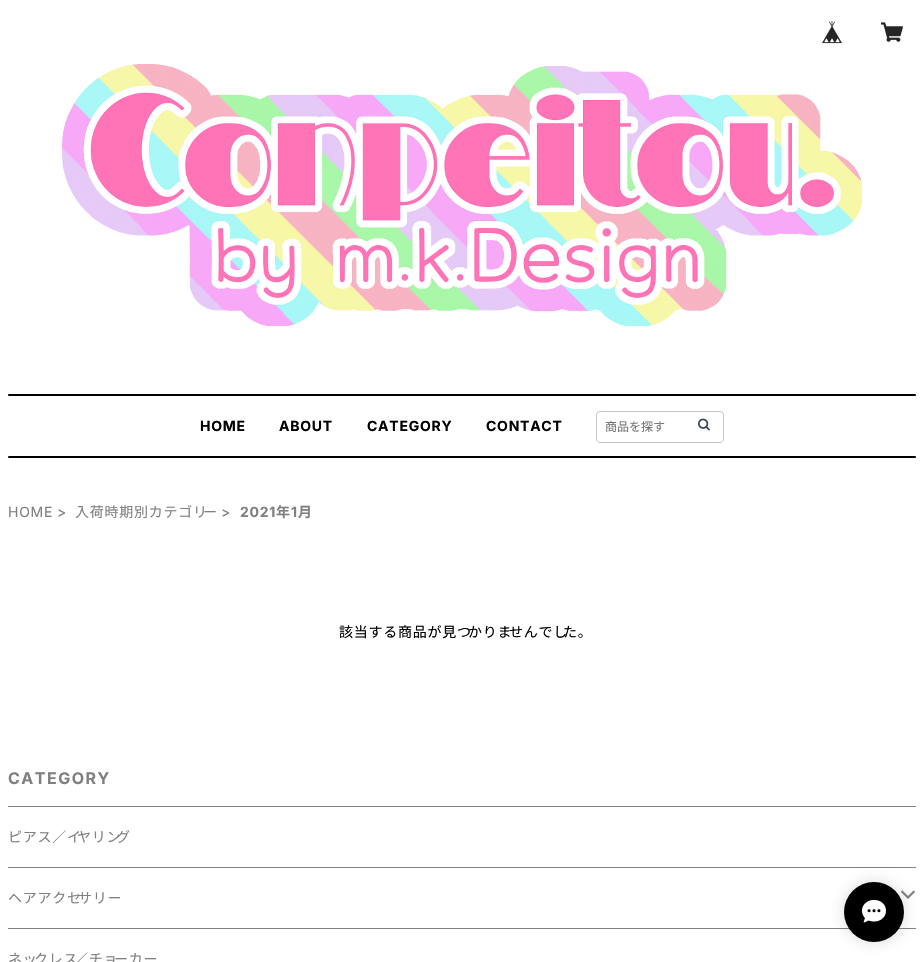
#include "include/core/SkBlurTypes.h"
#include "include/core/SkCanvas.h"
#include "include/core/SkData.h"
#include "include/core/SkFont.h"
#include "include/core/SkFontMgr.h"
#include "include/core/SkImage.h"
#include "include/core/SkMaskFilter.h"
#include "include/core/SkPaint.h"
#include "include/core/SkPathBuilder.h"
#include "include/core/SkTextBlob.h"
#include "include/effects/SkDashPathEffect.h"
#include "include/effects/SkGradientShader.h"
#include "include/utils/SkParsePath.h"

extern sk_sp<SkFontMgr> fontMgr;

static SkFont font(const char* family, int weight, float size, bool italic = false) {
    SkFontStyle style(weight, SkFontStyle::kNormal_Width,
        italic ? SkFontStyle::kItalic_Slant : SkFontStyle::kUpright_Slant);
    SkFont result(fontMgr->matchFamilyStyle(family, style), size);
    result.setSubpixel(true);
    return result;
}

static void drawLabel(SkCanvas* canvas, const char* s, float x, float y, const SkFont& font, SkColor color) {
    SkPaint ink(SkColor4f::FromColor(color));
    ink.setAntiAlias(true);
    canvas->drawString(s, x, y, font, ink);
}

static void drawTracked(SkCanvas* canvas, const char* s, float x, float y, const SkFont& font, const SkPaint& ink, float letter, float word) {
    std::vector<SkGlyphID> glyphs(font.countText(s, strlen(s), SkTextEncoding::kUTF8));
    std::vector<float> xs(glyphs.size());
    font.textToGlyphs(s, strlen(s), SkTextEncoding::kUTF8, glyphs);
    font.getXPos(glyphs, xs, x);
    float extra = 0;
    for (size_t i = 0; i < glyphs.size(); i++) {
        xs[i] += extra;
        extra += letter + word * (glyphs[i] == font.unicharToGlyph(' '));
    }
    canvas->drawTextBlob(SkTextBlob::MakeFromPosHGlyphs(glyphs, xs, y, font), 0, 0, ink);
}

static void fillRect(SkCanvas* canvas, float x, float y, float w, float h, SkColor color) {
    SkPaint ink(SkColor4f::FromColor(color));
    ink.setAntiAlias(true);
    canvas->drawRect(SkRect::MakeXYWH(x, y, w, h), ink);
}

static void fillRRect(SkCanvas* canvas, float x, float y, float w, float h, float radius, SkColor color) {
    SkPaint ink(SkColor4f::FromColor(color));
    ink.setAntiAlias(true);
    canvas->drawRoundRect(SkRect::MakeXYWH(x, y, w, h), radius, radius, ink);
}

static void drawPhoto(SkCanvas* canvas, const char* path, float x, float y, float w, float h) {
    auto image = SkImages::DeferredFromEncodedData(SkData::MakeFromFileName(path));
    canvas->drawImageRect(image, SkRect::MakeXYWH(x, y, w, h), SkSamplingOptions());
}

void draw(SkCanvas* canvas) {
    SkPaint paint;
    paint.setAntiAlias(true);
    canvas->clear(0xFFFFFFFF);
    drawPhoto(canvas, "assets/img1.png", 822, 21, 20, 23);
    drawPhoto(canvas, "assets/img2.png", 881, 22, 22, 20);
    drawPhoto(canvas, "assets/img3.png", 62, 64, 800, 262);
    fillRRect(canvas, 8, 394, 908, 2, 1, 0xFF000000);
    SkFont font1 = font("Inter", 700, 14);
    paint.setColor(0xFF000000);
    drawTracked(canvas, "HOME", 200, 431, font1, paint, 0.75f, 0);
    drawTracked(canvas, "ABOUT", 279, 431, font1, paint, 0.75f, 0);
    drawTracked(canvas, "CATEGORY", 367, 431, font1, paint, 0.75f, 0);
    drawTracked(canvas, "CONTACT", 486, 431, font1, paint, 0.75f, 0);
    paint.setStroke(true);
    paint.setStrokeWidth(1);
    paint.setColor(0xFFC2C8D2);
    canvas->drawRoundRect(SkRect::MakeXYWH(596.5f, 411.5f, 127, 31), 3.5f, 3.5f, paint);
    SkFont font2 = font("Noto Sans JP", 400, 12);
    drawLabel(canvas, "商品を探す", 605, 431, font2, 0xFF757575);
    drawPhoto(canvas, "assets/img4.png", 698, 418, 12, 13);
    fillRRect(canvas, 8, 456, 908, 2, 1, 0xFF000000);
    SkFont font3 = font("Inter", 400, 14);
    paint.setStroke(false);
    paint.setColor(0xFF808080);
    drawTracked(canvas, "HOME", 8, 517, font3, paint, 0.75f, 0);
    drawTracked(canvas, ">", 57, 517, font3, paint, 0.75f, 0);
    SkFont font4 = font("Noto Sans JP", 400, 14);
    drawTracked(canvas, "入荷時期別カテゴリ", 75, 517, font4, paint, 0.75f, 0);
    drawTracked(canvas, "ー", 203, 517, font4, paint, 0.75f, 0);
    drawTracked(canvas, ">", 221, 517, font3, paint, 0.75f, 0);
    drawTracked(canvas, "2021", 240, 517, font1, paint, 0.75f, 0);
    SkFont font5 = font("Noto Sans JP", 700, 14);
    drawTracked(canvas, "年", 276, 517, font5, paint, 0.75f, 0);
    drawTracked(canvas, "1", 291, 517, font1, paint, 0.75f, 0);
    drawTracked(canvas, "月", 298, 517, font5, paint, 0.75f, 0);
    paint.setColor(0xFF000000);
    drawTracked(canvas, "該当する商品が見つ", 339, 637, font4, paint, 0.75f, 0);
    drawTracked(canvas, "かりま", 468, 637, font4, paint, 0.75f, 0);
    drawTracked(canvas, "せんでし", 509, 637, font4, paint, 0.75f, 0);
    drawTracked(canvas, "た。", 563, 637, font4, paint, 0.75f, 0);
    SkFont font6 = font("Inter", 700, 16);
    paint.setColor(0xFF808080);
    drawTracked(canvas, "CATEGORY", 8, 784, font6, paint, 1.5f, 0);
    fillRect(canvas, 8, 806, 908, 1, 0xFF808080);
    drawTracked(canvas, "ピアス／イ", 8, 842, font4, paint, 0.75f, 0);
    drawTracked(canvas, "ヤリン", 77, 842, font4, paint, 0.75f, 0);
    drawTracked(canvas, "グ", 116, 842, font4, paint, 0.75f, 0);
    fillRect(canvas, 8, 867, 908, 1, 0xFF808080);
    drawTracked(canvas, "ヘアアクセ", 8, 903, font4, paint, 0.75f, 0);
    drawTracked(canvas, "サリー", 78, 903, font4, paint, 0.75f, 0);
    drawPhoto(canvas, "assets/img5.png", 901, 890, 14, 9);
    fillRect(canvas, 8, 928, 908, 1, 0xFF808080);
    drawTracked(canvas, "ネッ", 8, 964, font4, paint, 0.75f, 0);
    drawTracked(canvas, "クレス", 34, 964, font4, paint, 0.75f, 0);
    drawTracked(canvas, "／チョ", 74, 964, font4, paint, 0.75f, 0);
    drawTracked(canvas, "ーカー", 114, 964, font4, paint, 0.75f, 0);
    paint.setColor(0x33334258);
    paint.setMaskFilter(SkMaskFilter::MakeBlur(kNormal_SkBlurStyle, 7.5f));
    canvas->drawRoundRect(SkRect::MakeXYWH(844, 882, 60, 60), 30, 30, paint);
    paint.setMaskFilter(nullptr);
    paint.setColor(0xFF000000);
    canvas->drawCircle(874, 912, 30, paint);
    drawPhoto(canvas, "assets/img6.png", 862, 899, 24, 24);
}
